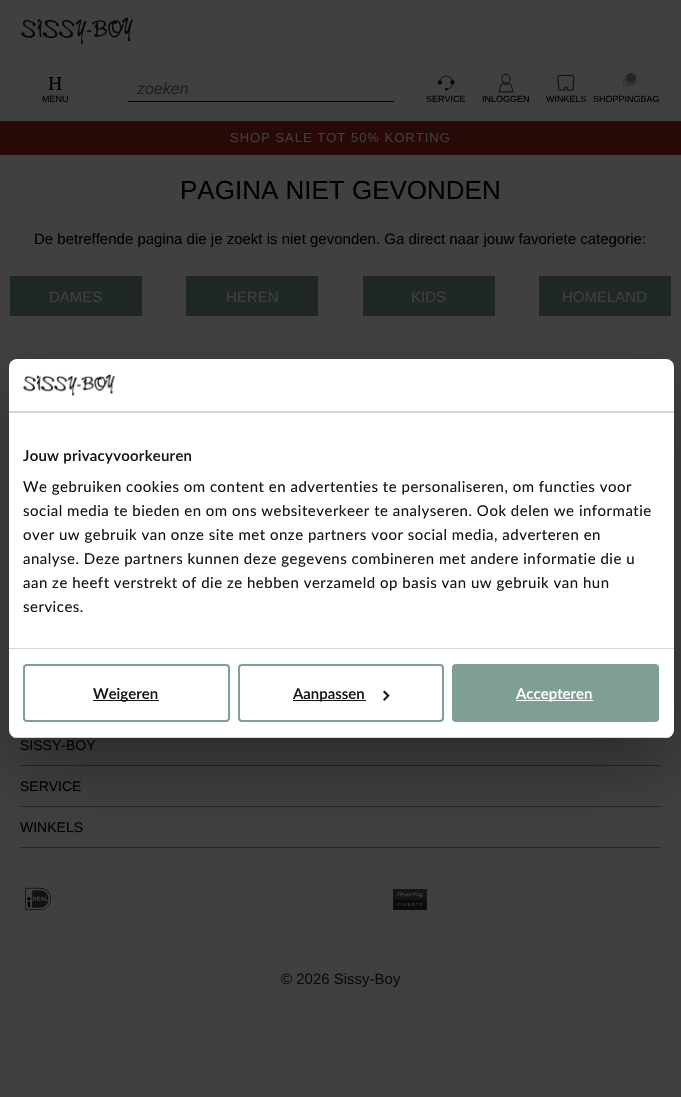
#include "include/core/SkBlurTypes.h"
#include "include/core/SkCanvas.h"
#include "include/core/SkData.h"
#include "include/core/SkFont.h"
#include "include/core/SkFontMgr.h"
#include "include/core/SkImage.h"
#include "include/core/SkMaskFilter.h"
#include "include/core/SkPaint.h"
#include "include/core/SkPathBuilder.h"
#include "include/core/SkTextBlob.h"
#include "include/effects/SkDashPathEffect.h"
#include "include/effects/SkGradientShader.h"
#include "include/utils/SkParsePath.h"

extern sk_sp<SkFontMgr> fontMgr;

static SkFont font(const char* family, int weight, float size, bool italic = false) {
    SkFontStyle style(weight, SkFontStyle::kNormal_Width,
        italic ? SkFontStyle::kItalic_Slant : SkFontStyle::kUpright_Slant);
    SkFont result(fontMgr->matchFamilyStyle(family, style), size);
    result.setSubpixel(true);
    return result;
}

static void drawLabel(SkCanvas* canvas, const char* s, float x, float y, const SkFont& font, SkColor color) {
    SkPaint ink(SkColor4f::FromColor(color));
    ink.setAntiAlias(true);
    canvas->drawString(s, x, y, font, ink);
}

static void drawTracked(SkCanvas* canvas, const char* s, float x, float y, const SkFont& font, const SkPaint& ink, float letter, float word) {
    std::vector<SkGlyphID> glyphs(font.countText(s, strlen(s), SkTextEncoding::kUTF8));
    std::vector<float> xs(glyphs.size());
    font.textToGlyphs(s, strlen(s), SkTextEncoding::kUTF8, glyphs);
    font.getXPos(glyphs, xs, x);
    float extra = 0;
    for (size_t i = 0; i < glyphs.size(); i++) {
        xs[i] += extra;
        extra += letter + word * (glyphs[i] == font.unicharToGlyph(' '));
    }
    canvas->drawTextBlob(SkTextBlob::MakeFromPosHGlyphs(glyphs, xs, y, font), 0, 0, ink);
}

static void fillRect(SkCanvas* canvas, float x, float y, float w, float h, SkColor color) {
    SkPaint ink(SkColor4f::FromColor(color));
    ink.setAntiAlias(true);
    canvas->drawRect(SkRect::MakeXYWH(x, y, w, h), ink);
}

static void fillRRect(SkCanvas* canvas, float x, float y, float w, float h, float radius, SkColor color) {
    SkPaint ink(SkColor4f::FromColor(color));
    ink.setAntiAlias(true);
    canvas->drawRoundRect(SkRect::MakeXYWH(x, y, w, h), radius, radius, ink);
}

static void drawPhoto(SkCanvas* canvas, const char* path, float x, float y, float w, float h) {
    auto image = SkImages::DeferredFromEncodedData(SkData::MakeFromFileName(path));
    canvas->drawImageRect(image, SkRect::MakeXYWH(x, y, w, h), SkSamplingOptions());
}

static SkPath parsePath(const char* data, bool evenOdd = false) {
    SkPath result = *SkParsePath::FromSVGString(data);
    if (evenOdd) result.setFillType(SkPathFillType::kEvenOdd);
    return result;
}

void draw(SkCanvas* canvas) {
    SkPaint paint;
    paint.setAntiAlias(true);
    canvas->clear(0xFF404040);
    SkFont font1 = font("Liberation Serif", 400, 20);
    drawLabel(canvas, "H", 48, 90, font1, 0xFF000000);
    SkFont font2 = font("Liberation Sans", 400, 9);
    drawLabel(canvas, "MENU", 42, 102, font2, 0xFF000000);
    drawPhoto(canvas, "assets/img1.png", 437, 75, 18, 16);
    drawLabel(canvas, "SERVICE", 426, 102, font2, 0xFF000000);
    drawPhoto(canvas, "assets/img2.png", 498, 73, 16, 20);
    drawLabel(canvas, "INLOGGEN", 482, 102, font2, 0xFF000000);
    drawPhoto(canvas, "assets/img3.png", 557, 74, 18, 17);
    drawLabel(canvas, "WINKELS", 546, 102, font2, 0xFF000000);
    drawPhoto(canvas, "assets/img4.png", 622, 78, 8, 9);
    paint.setColor(0x59000000);
    paint.setMaskFilter(SkMaskFilter::MakeBlur(kNormal_SkBlurStyle, 0.5f));
    canvas->drawRoundRect(SkRect::MakeXYWH(625, 73, 12, 12), 6, 6, paint);
    paint.setMaskFilter(nullptr);
    paint.setColor(0xFF202825);
    canvas->drawCircle(631, 78, 5.5f, paint);
    paint.setStroke(true);
    paint.setStrokeWidth(1);
    paint.setColor(0xFF404040);
    canvas->drawCircle(631, 78, 5.5f, paint);
    drawLabel(canvas, "SHOPPINGBAG", 593, 102, font2, 0xFF000000);
    fillRect(canvas, 0, 60, 681, 1, 0xFF3B3A39);
    drawPhoto(canvas, "assets/img5.png", 21, 17, 112, 27);
    fillRect(canvas, 128, 101, 266, 1, 0xFF000000);
    SkFont font3 = font("Liberation Sans", 400, 16, true);
    drawLabel(canvas, "zoeken", 137, 94, font3, 0xFF1F1E1C);
    fillRect(canvas, 0, 121, 681, 34, 0xFF270908);
    SkFont font4 = font("Liberation Sans", 400, 13);
    paint.setStroke(false);
    drawTracked(canvas, "SHOP SALE TOT 50% KORTING", 230, 142, font4, paint, 1, 0);
    SkFont font5 = font("Liberation Sans", 400, 26);
    drawLabel(canvas, "PAGINA NIET GEVONDEN", 180, 199, font5, 0xFF000000);
    SkFont font6 = font("Liberation Sans", 400, 15);
    drawLabel(canvas, "De betreffende pagina die je zoekt is niet gevonden. Ga direct naar jouw favoriete categorie:", 34, 244, font6, 0xFF000000);
    fillRect(canvas, 10, 276, 132, 40, 0xFF202825);
    drawLabel(canvas, "DAMES", 49, 302, font6, 0xFF404040);
    fillRect(canvas, 186, 276, 132, 40, 0xFF202825);
    drawLabel(canvas, "HEREN", 226, 302, font6, 0xFF404040);
    fillRect(canvas, 363, 276, 132, 40, 0xFF202825);
    drawLabel(canvas, "KIDS", 411, 302, font6, 0xFF404040);
    fillRect(canvas, 539, 276, 132, 40, 0xFF202825);
    drawLabel(canvas, "HOMELAND", 562, 302, font6, 0xFF404040);
    fillRect(canvas, 20, 765, 641, 1, 0xFF272727);
    fillRect(canvas, 20, 806, 641, 1, 0xFF272727);
    fillRect(canvas, 20, 847, 641, 1, 0xFF272727);
    paint.setColor(0x4D000000);
    paint.setMaskFilter(SkMaskFilter::MakeBlur(kNormal_SkBlurStyle, 34));
    canvas->drawRoundRect(SkRect::MakeXYWH(9, 391, 665, 379), 8, 8, paint);
    paint.setMaskFilter(nullptr);
    fillRRect(canvas, 9, 359, 665, 379, 8, 0xFFFFFFFF);
    fillRect(canvas, 9, 411, 665, 2, 0xFFD6D6D6);
    drawPhoto(canvas, "assets/img6.png", 23, 374, 92, 22);
    fillRect(canvas, 9, 648, 665, 1, 0xFFD6D6D6);
    SkFont font7 = font("Lato", 600, 15);
    paint.setColor(0xFF141414);
    drawTracked(canvas, "Jouw privacyvoorkeuren", 23, 461, font7, paint, 0.25f, 0);
    SkFont font8 = font("Lato", 400, 15);
    drawTracked(canvas, "We gebruiken cookies om content en advertenties te personaliseren, om functies voor", 23, 492, font8, paint, 0.5f, 0);
    drawTracked(canvas, "social media te bieden en om ons websiteverkeer te analyseren. Ook delen we informatie", 23, 516, font8, paint, 0.5f, 0);
    drawTracked(canvas, "over uw gebruik van onze site met onze partners voor social media, adverteren en", 23, 540, font8, paint, 0.5f, 0);
    drawTracked(canvas, "analyse. Deze partners kunnen deze gegevens combineren met andere informatie die u", 23, 564, font8, paint, 0.5f, 0);
    drawTracked(canvas, "aan ze heeft verstrekt of die ze hebben verzameld op basis van uw gebruik van hun", 23, 588, font8, paint, 0.5f, 0);
    drawTracked(canvas, "services.", 23, 612, font8, paint, 0.5f, 0);
    canvas->save();
    canvas->clipPath(parsePath("M17 359H666C670.5 359 674 362.5 674 367V730C674 734.5 670.5 738 666 738H17C12.5 738 9 734.5 9 730V367C9 362.5 12.5 359 17 359Z"), true);
    fillRect(canvas, 9, 737, 665, 1, 0xFFD6D6D6);
    canvas->restore();
    paint.setStroke(true);
    paint.setStrokeWidth(2);
    paint.setColor(0xFF7E9F92);
    canvas->drawRoundRect(SkRect::MakeXYWH(24, 665, 205, 56), 3, 3, paint);
    fillRect(canvas, 93, 700, 66, 1, 0xFF141414);
    drawLabel(canvas, "Weigeren", 93, 699, font7, 0xFF141414);
    canvas->drawRoundRect(SkRect::MakeXYWH(239, 665, 204, 56), 3, 3, paint);
    fillRect(canvas, 293, 700, 73, 1, 0xFF141414);
    drawLabel(canvas, "Aanpassen", 293, 699, font7, 0xFF141414);
    paint.setStroke(false);
    paint.setColor(0xFF141414);
    canvas->drawPath(parsePath("M384.5 690.5L389.5 695.5L388 697L383 692Z"), paint);
    canvas->drawPath(parsePath("M388 694.5L389.5 695.5L384.5 701L383 699.5Z"), paint);
    paint.setColor(0xFF7E9F92);
    canvas->drawRoundRect(SkRect::MakeXYWH(453, 665, 205, 56), 3, 3, paint);
    paint.setStroke(true);
    canvas->drawRoundRect(SkRect::MakeXYWH(453, 665, 205, 56), 3, 3, paint);
    fillRect(canvas, 516, 700, 77, 1, 0xFFFFFFFF);
    drawLabel(canvas, "Accepteren", 516, 699, font7, 0xFFFFFFFF);
    SkFont font9 = font("Liberation Sans", 400, 14);
    drawLabel(canvas, "SISSY-BOY", 20, 750, font9, 0xFF000000);
    drawLabel(canvas, "SERVICE", 20, 791, font9, 0xFF000000);
    drawLabel(canvas, "WINKELS", 20, 832, font9, 0xFF000000);
    drawPhoto(canvas, "assets/img7.png", 25, 887, 26, 24);
    drawPhoto(canvas, "assets/img8.png", 393, 889, 34, 21);
    drawLabel(canvas, "© 2026 Sissy-Boy", 281, 984, font6, 0xFF0A0A0A);
}
